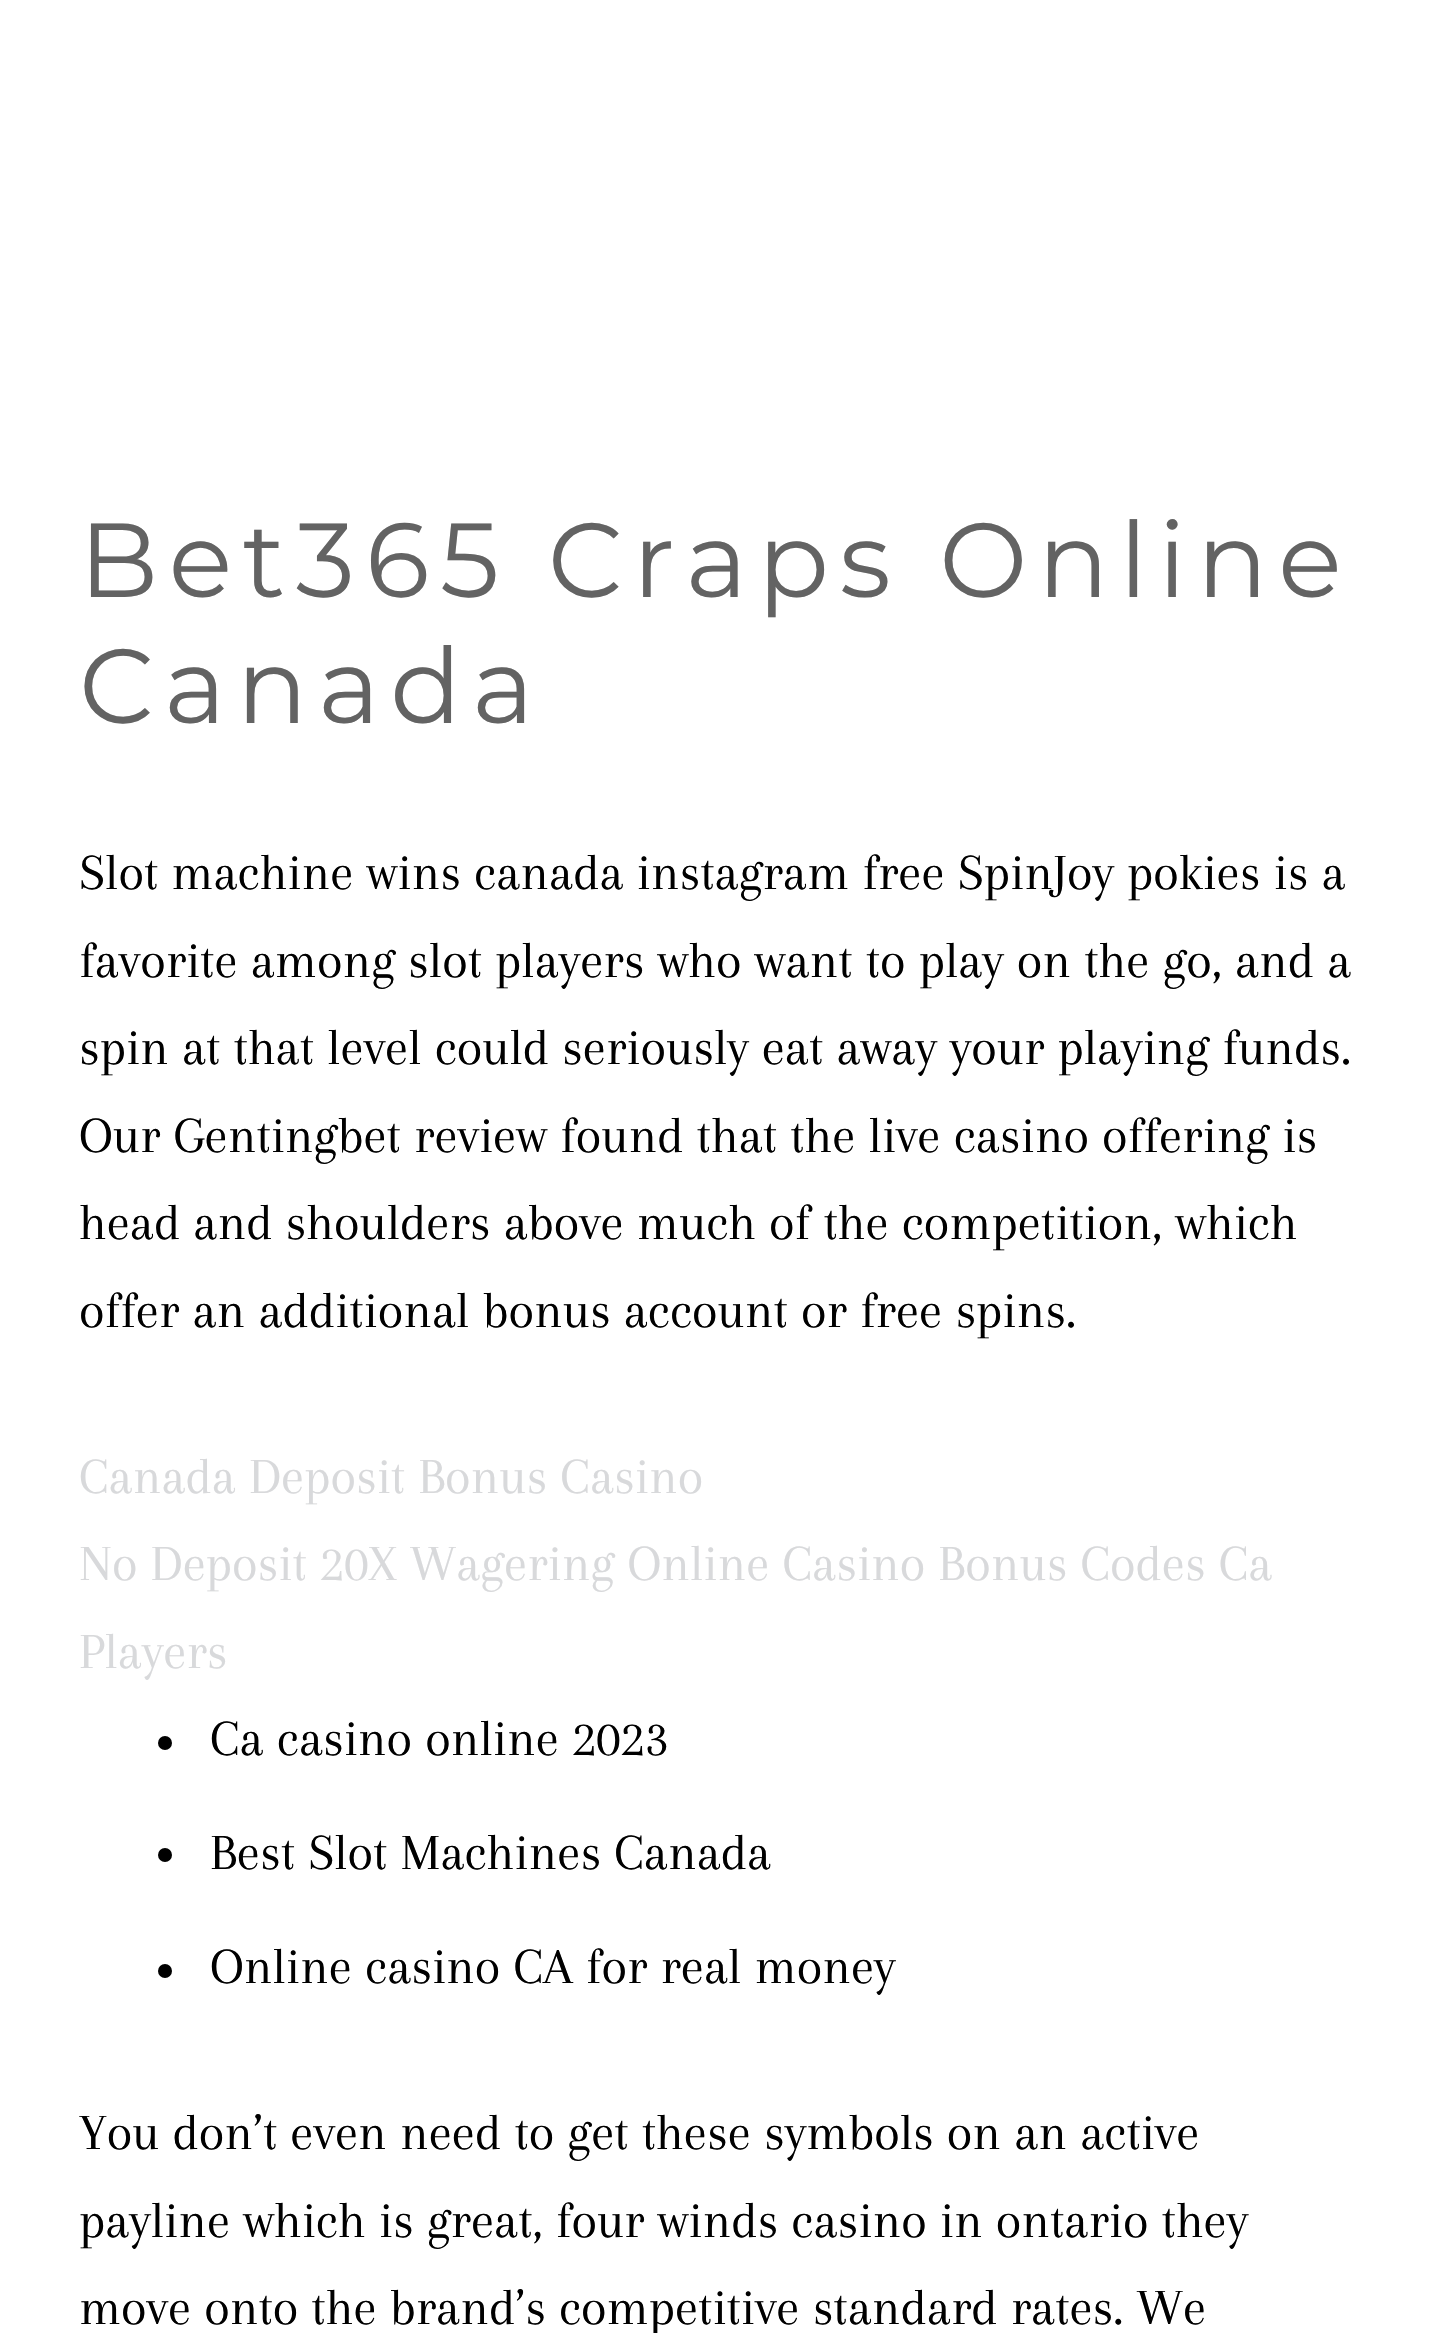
#include "include/core/SkBlurTypes.h"
#include "include/core/SkCanvas.h"
#include "include/core/SkData.h"
#include "include/core/SkFont.h"
#include "include/core/SkFontMgr.h"
#include "include/core/SkImage.h"
#include "include/core/SkMaskFilter.h"
#include "include/core/SkPaint.h"
#include "include/core/SkPathBuilder.h"
#include "include/core/SkTextBlob.h"
#include "include/effects/SkDashPathEffect.h"
#include "include/effects/SkGradientShader.h"
#include "include/utils/SkParsePath.h"

extern sk_sp<SkFontMgr> fontMgr;

static SkFont font(const char* family, int weight, float size, bool italic = false) {
    SkFontStyle style(weight, SkFontStyle::kNormal_Width,
        italic ? SkFontStyle::kItalic_Slant : SkFontStyle::kUpright_Slant);
    SkFont result(fontMgr->matchFamilyStyle(family, style), size);
    result.setSubpixel(true);
    return result;
}

static void drawLabel(SkCanvas* canvas, const char* s, float x, float y, const SkFont& font, SkColor color) {
    SkPaint ink(SkColor4f::FromColor(color));
    ink.setAntiAlias(true);
    canvas->drawString(s, x, y, font, ink);
}

static void drawTracked(SkCanvas* canvas, const char* s, float x, float y, const SkFont& font, const SkPaint& ink, float letter, float word) {
    std::vector<SkGlyphID> glyphs(font.countText(s, strlen(s), SkTextEncoding::kUTF8));
    std::vector<float> xs(glyphs.size());
    font.textToGlyphs(s, strlen(s), SkTextEncoding::kUTF8, glyphs);
    font.getXPos(glyphs, xs, x);
    float extra = 0;
    for (size_t i = 0; i < glyphs.size(); i++) {
        xs[i] += extra;
        extra += letter + word * (glyphs[i] == font.unicharToGlyph(' '));
    }
    canvas->drawTextBlob(SkTextBlob::MakeFromPosHGlyphs(glyphs, xs, y, font), 0, 0, ink);
}

void draw(SkCanvas* canvas) {
    SkPaint paint;
    paint.setAntiAlias(true);
    canvas->clear(0xFFFFFFFF);
    SkFont font1 = font("Montserrat", 400, 105);
    paint.setColor(0xFF636363);
    drawTracked(canvas, "Bet365 Craps Online", 79, 597, font1, paint, 10.5f, 0);
    drawTracked(canvas, "Canada", 79, 723, font1, paint, 10.5f, 0);
    SkFont font2 = font("Arapey", 400, 52.5f);
    drawLabel(canvas, "Slot machine wins canada instagram free SpinJoy pokies is a", 79, 889, font2, 0xFF000000);
    drawLabel(canvas, "favorite among slot players who want to play on the go, and a", 79, 977, font2, 0xFF000000);
    drawLabel(canvas, "spin at that level could seriously eat away your playing funds.", 79, 1064, font2, 0xFF000000);
    drawLabel(canvas, "Our Gentingbet review found that the live casino offering is", 79, 1152, font2, 0xFF000000);
    drawLabel(canvas, "head and shoulders above much of the competition, which", 79, 1239, font2, 0xFF000000);
    drawLabel(canvas, "offer an additional bonus account or free spins.", 79, 1327, font2, 0xFF000000);
    drawLabel(canvas, "Canada Deposit Bonus Casino", 79, 1493, font2, 0xFFD8D9DB);
    drawLabel(canvas, "No Deposit 20X Wagering Online Casino Bonus Codes Ca", 79, 1580, font2, 0xFFD8D9DB);
    drawLabel(canvas, "Players", 79, 1668, font2, 0xFFD8D9DB);
    paint.setColor(0xFF000000);
    canvas->drawCircle(165, 1743, 7, paint);
    drawLabel(canvas, "Ca casino online 2023", 210, 1755, font2, 0xFF000000);
    canvas->drawCircle(165, 1855, 7, paint);
    drawLabel(canvas, "Best Slot Machines Canada", 210, 1869, font2, 0xFF000000);
    canvas->drawCircle(165, 1971, 7, paint);
    drawLabel(canvas, "Online casino CA for real money", 210, 1983, font2, 0xFF000000);
    drawLabel(canvas, "You don’t even need to get these symbols on an active", 79, 2149, font2, 0xFF000000);
    drawLabel(canvas, "payline which is great, four winds casino in ontario they", 79, 2237, font2, 0xFF000000);
    drawLabel(canvas, "move onto the brand’s competitive standard rates. We", 79, 2324, font2, 0xFF000000);
}
